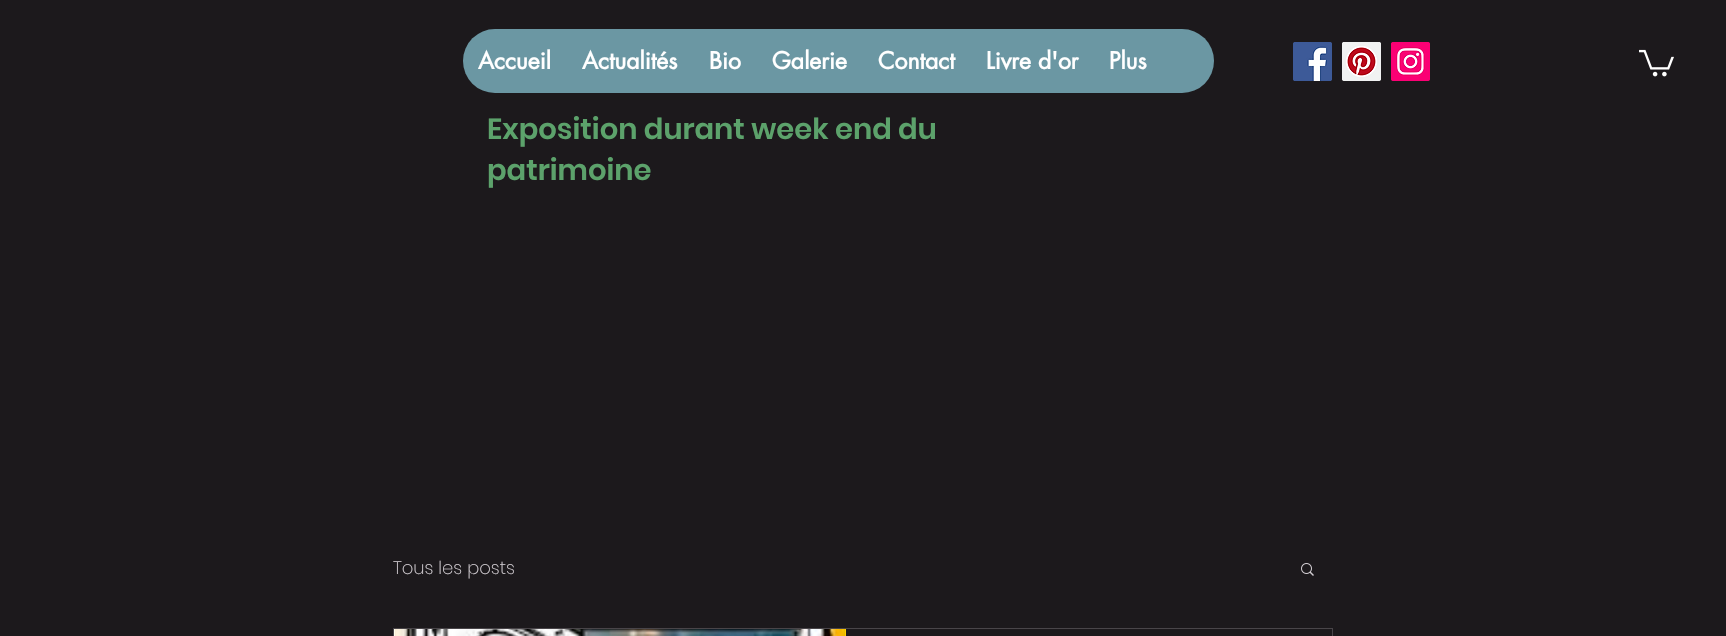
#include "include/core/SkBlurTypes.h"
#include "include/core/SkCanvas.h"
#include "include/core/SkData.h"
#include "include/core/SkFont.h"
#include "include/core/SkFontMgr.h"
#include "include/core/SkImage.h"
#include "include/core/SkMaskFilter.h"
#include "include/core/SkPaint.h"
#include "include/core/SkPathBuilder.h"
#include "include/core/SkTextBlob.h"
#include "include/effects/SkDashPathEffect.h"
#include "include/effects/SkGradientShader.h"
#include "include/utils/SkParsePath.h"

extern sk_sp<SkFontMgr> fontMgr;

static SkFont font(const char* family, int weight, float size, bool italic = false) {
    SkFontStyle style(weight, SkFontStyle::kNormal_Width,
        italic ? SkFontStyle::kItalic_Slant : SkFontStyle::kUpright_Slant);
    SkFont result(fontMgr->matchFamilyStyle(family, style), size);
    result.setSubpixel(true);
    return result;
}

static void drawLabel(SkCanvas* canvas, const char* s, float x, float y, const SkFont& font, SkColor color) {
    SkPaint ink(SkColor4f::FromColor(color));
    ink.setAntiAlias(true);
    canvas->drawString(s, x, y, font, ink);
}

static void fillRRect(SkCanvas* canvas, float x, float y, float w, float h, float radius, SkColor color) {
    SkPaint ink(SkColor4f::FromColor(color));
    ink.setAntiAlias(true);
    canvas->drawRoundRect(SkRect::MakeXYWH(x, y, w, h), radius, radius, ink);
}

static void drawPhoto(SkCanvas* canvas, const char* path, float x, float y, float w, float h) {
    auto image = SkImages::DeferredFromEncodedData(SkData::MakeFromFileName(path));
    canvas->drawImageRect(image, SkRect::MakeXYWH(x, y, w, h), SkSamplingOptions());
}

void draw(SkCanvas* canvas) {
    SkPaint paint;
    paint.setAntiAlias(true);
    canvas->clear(0xFF1C191C);
    fillRRect(canvas, 463, 29, 751, 64, 32, 0xFF6B97A3);
    SkFont font1 = font("futura", 700, 23);
    drawLabel(canvas, "Accueil", 478, 69, font1, 0xFFFFFFFF);
    drawLabel(canvas, "Actualités", 582, 69, font1, 0xFFFFFFFF);
    drawLabel(canvas, "Bio", 709, 69, font1, 0xFFFFFFFF);
    drawLabel(canvas, "Galerie", 772, 69, font1, 0xFFFFFFFF);
    drawLabel(canvas, "Contact", 878, 69, font1, 0xFFFFFFFF);
    drawLabel(canvas, "Livre d'or", 986, 69, font1, 0xFFFFFFFF);
    drawLabel(canvas, "Plus", 1109, 69, font1, 0xFFFFFFFF);
    drawPhoto(canvas, "assets/img1.png", 1293, 42, 39, 39);
    drawPhoto(canvas, "assets/img2.png", 1342, 42, 39, 39);
    drawPhoto(canvas, "assets/img3.png", 1391, 42, 39, 39);
    drawPhoto(canvas, "assets/img4.png", 1639, 49, 35, 28);
    SkFont font2 = font("Poppins", 600, 29);
    drawLabel(canvas, "Exposition durant week end du", 487, 139, font2, 0xFF5CA26B);
    drawLabel(canvas, "patrimoine", 487, 180, font2, 0xFF5CA26B);
    SkFont font3 = font("Poppins", 200, 18);
    drawLabel(canvas, "Tous les posts", 393, 574, font3, 0xFFD2CDD2);
    drawPhoto(canvas, "assets/img5.png", 1301, 563, 13, 13);
    paint.setStroke(true);
    paint.setStrokeWidth(1);
    paint.setColor(0xFF494549);
    canvas->drawRect(SkRect::MakeXYWH(393.5f, 628.5f, 939, 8), paint);
    drawPhoto(canvas, "assets/img6.png", 394, 629, 452, 7);
}
